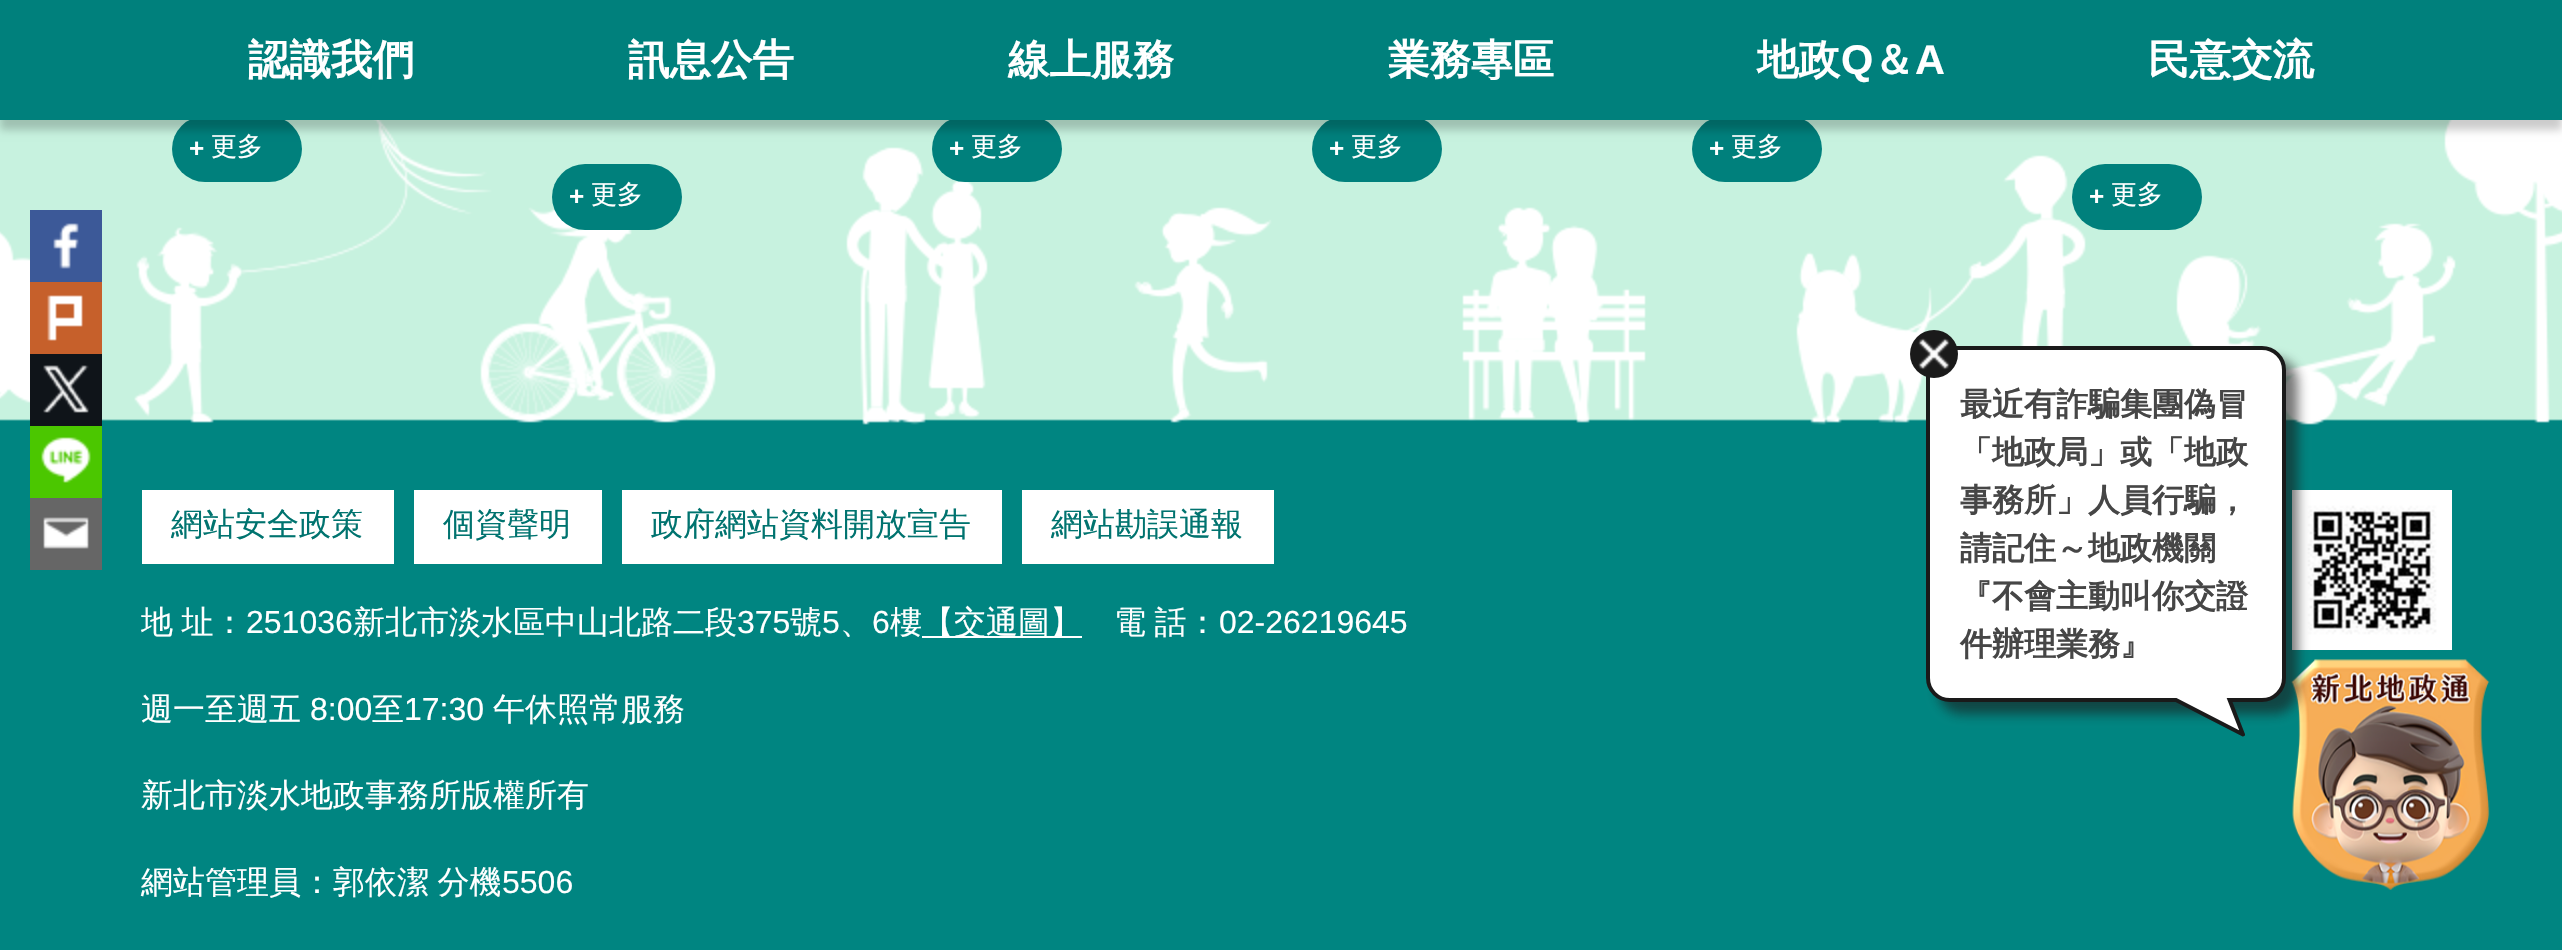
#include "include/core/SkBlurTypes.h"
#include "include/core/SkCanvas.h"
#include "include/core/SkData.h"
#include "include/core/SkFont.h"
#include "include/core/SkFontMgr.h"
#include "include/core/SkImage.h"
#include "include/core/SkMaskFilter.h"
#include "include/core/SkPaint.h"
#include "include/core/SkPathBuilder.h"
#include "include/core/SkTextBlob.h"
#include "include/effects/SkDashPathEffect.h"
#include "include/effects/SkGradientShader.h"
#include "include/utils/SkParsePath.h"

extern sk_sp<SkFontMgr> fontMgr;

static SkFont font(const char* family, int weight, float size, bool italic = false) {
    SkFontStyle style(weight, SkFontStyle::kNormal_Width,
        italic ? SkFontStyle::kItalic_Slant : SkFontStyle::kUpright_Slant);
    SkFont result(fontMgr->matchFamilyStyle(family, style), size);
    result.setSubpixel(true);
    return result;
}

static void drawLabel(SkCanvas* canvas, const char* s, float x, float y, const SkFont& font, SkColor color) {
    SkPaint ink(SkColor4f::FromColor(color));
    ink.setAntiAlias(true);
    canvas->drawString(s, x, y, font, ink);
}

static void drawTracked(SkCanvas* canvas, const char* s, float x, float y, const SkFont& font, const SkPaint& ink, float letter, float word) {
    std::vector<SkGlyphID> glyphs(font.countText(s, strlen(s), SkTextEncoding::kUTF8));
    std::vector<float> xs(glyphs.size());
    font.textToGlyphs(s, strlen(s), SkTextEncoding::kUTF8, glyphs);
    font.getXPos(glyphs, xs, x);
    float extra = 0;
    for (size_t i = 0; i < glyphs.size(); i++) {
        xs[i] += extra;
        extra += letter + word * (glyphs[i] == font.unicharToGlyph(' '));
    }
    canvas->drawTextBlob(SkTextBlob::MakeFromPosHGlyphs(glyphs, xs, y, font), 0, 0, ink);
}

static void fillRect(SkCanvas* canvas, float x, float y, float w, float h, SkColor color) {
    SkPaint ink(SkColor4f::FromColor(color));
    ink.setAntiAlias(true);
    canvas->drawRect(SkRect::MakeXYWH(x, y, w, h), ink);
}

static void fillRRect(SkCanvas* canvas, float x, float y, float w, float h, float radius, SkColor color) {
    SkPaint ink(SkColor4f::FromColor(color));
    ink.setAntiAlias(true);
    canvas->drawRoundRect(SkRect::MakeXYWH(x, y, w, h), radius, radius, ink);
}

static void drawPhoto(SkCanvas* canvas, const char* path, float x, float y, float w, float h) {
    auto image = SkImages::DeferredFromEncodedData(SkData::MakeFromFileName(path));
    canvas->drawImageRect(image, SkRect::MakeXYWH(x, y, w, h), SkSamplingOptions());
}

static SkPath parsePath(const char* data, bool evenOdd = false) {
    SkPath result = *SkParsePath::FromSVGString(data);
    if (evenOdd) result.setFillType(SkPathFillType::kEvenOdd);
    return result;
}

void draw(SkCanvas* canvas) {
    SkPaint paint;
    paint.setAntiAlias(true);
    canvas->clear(0xFF008581);
    fillRect(canvas, 0, 120, 2562, 301, 0xFFC7F2DF);
    drawPhoto(canvas, "assets/img6.png", 0, 120, 2562, 310);
    fillRRect(canvas, 172, 116, 130, 66, 33, 0xFF00807C);
    fillRRect(canvas, 932, 116, 130, 66, 33, 0xFF00807C);
    fillRRect(canvas, 1312, 116, 130, 66, 33, 0xFF00807C);
    fillRRect(canvas, 1692, 116, 130, 66, 33, 0xFF00807C);
    paint.setColor(0x33000000);
    paint.setMaskFilter(SkMaskFilter::MakeBlur(kNormal_SkBlurStyle, 4));
    canvas->drawRect(SkRect::MakeXYWH(0, 10, 2562, 120), paint);
    paint.setMaskFilter(nullptr);
    fillRect(canvas, 0, 0, 2562, 120, 0xFF00807C);
    SkFont font1 = font("WenQuanYi Zen Hei", 700, 41.5f);
    drawLabel(canvas, "認識我們", 248, 74, font1, 0xFFFFFFFF);
    drawLabel(canvas, "訊息公告", 628, 74, font1, 0xFFFFFFFF);
    drawLabel(canvas, "線上服務", 1008, 74, font1, 0xFFFFFFFF);
    drawLabel(canvas, "業務專區", 1388, 74, font1, 0xFFFFFFFF);
    drawLabel(canvas, "地政", 1757, 74, font1, 0xFFFFFFFF);
    SkFont font2 = font("Liberation Sans", 700, 41.5f);
    drawLabel(canvas, "Q", 1841, 74, font2, 0xFFFFFFFF);
    drawLabel(canvas, "＆", 1873, 74, font1, 0xFFFFFFFF);
    drawLabel(canvas, "A", 1915, 74, font2, 0xFFFFFFFF);
    drawLabel(canvas, "民意交流", 2148, 74, font1, 0xFFFFFFFF);
    fillRect(canvas, 30, 210, 72, 72, 0xFF3C5998);
    drawPhoto(canvas, "assets/img1.png", 53, 223, 26, 46);
    fillRect(canvas, 30, 282, 72, 72, 0xFFC6602B);
    drawPhoto(canvas, "assets/img2.png", 47, 295, 36, 46);
    fillRect(canvas, 30, 354, 72, 72, 0xFF0F1419);
    drawPhoto(canvas, "assets/img3.png", 43, 365, 46, 48);
    fillRect(canvas, 30, 426, 72, 72, 0xFF4BC700);
    drawPhoto(canvas, "assets/img4.png", 41, 437, 50, 46);
    fillRect(canvas, 30, 498, 72, 72, 0xFF666666);
    drawPhoto(canvas, "assets/img5.png", 43, 517, 46, 32);
    SkFont font3 = font("Liberation Sans", 700, 26);
    drawLabel(canvas, "+", 189, 157, font3, 0xFFFFFFFF);
    SkFont font4 = font("WenQuanYi Zen Hei", 500, 26);
    drawLabel(canvas, "更多", 211, 155, font4, 0xFFFFFFFF);
    drawLabel(canvas, "+", 949, 157, font3, 0xFFFFFFFF);
    drawLabel(canvas, "更多", 971, 155, font4, 0xFFFFFFFF);
    drawLabel(canvas, "+", 1329, 157, font3, 0xFFFFFFFF);
    drawLabel(canvas, "更多", 1351, 155, font4, 0xFFFFFFFF);
    drawLabel(canvas, "+", 1709, 157, font3, 0xFFFFFFFF);
    drawLabel(canvas, "更多", 1731, 155, font4, 0xFFFFFFFF);
    fillRRect(canvas, 552, 164, 130, 66, 33, 0xFF00807C);
    drawLabel(canvas, "+", 569, 205, font3, 0xFFFFFFFF);
    drawLabel(canvas, "更多", 591, 203, font4, 0xFFFFFFFF);
    fillRRect(canvas, 2072, 164, 130, 66, 33, 0xFF00807C);
    drawLabel(canvas, "+", 2089, 205, font3, 0xFFFFFFFF);
    drawLabel(canvas, "更多", 2111, 203, font4, 0xFFFFFFFF);
    fillRect(canvas, 142, 490, 252, 74, 0xFFFFFFFF);
    SkFont font5 = font("WenQuanYi Zen Hei", 500, 32);
    drawLabel(canvas, "網站安全政策", 171, 535, font5, 0xFF00736F);
    fillRect(canvas, 414, 490, 188, 74, 0xFFFFFFFF);
    drawLabel(canvas, "個資聲明", 443, 535, font5, 0xFF00736F);
    fillRect(canvas, 622, 490, 380, 74, 0xFFFFFFFF);
    drawLabel(canvas, "政府網站資料開放宣告", 651, 535, font5, 0xFF00736F);
    fillRect(canvas, 1022, 490, 252, 74, 0xFFFFFFFF);
    drawLabel(canvas, "網站勘誤通報", 1051, 535, font5, 0xFF00736F);
    drawPhoto(canvas, "assets/img7.png", 2292, 490, 160, 160);
    paint.setColor(0xFFFFFFFF);
    drawTracked(canvas, "地 址：", 141, 633, font5, paint, 0, -1);
    SkFont font6 = font("Liberation Sans", 400, 32);
    drawLabel(canvas, "251036", 246, 633, font6, 0xFFFFFFFF);
    drawLabel(canvas, "新北市淡水區中山北路二段", 353, 633, font5, 0xFFFFFFFF);
    drawLabel(canvas, "375", 737, 633, font6, 0xFFFFFFFF);
    drawLabel(canvas, "號", 790, 633, font5, 0xFFFFFFFF);
    drawLabel(canvas, "5", 822, 633, font6, 0xFFFFFFFF);
    drawLabel(canvas, "、", 840, 633, font5, 0xFFFFFFFF);
    drawLabel(canvas, "6", 872, 633, font6, 0xFFFFFFFF);
    drawLabel(canvas, "樓", 890, 633, font5, 0xFFFFFFFF);
    fillRect(canvas, 922, 636, 160, 2, 0xFFFFFFFF);
    drawLabel(canvas, "【交通圖】", 922, 633, font5, 0xFFFFFFFF);
    drawTracked(canvas, "電 話：", 1114, 633, font5, paint, 0, -1);
    drawLabel(canvas, "02-26219645", 1219, 633, font6, 0xFFFFFFFF);
    drawLabel(canvas, "週一至週五", 141, 720, font5, 0xFFFFFFFF);
    drawLabel(canvas, "8:00", 310, 720, font6, 0xFFFFFFFF);
    drawLabel(canvas, "至", 372, 720, font5, 0xFFFFFFFF);
    drawLabel(canvas, "17:30", 404, 720, font6, 0xFFFFFFFF);
    drawLabel(canvas, "午休照常服務", 493, 720, font5, 0xFFFFFFFF);
    drawLabel(canvas, "新北市淡水地政事務所版權所有", 141, 806, font5, 0xFFFFFFFF);
    drawTracked(canvas, "網站管理員：郭依潔 分機", 141, 893, font5, paint, 0, -1);
    drawLabel(canvas, "5506", 502, 893, font6, 0xFFFFFFFF);
    drawPhoto(canvas, "assets/img9.png", 2291, 659, 199, 231);
    paint.setColor(0x991A1A1A);
    paint.setMaskFilter(SkMaskFilter::MakeBlur(kNormal_SkBlurStyle, 6));
    canvas->drawRoundRect(SkRect::MakeXYWH(1938, 358, 360, 356), 24, 24, paint);
    paint.setMaskFilter(nullptr);
    paint.setColor(0xFFFFFFFF);
    canvas->drawRoundRect(SkRect::MakeXYWH(1928, 348, 356, 352), 22, 22, paint);
    paint.setStroke(true);
    paint.setStrokeWidth(4);
    paint.setColor(0xFF1A1A1A);
    canvas->drawRoundRect(SkRect::MakeXYWH(1928, 348, 356, 352), 22, 22, paint);
    paint.setStroke(false);
    canvas->drawCircle(1934, 354, 24, paint);
    drawPhoto(canvas, "assets/img8.png", 1918, 338, 32, 32);
    SkFont font7 = font("WenQuanYi Zen Hei", 700, 32);
    drawLabel(canvas, "最近有詐騙集團偽冒", 1960, 415, font7, 0xFF464646);
    drawLabel(canvas, "「地政局」或「地政", 1960, 463, font7, 0xFF464646);
    drawLabel(canvas, "事務所」人員行騙，", 1960, 511, font7, 0xFF464646);
    drawLabel(canvas, "請記住～地政機關", 1960, 559, font7, 0xFF464646);
    drawLabel(canvas, "『不會主動叫你交證", 1960, 607, font7, 0xFF464646);
    drawLabel(canvas, "件辦理業務』", 1960, 655, font7, 0xFF464646);
    canvas->save();
    canvas->clipRect(SkRect::MakeXYWH(2156, 698, 92, 40));
    paint.setColor(0xFFFFFFFF);
    canvas->drawPath(parsePath("M2159 692H2225L2243 733Z"), paint);
    paint.setStroke(true);
    paint.setStrokeCap(SkPaint::kRound_Cap);
    paint.setStrokeJoin(SkPaint::kRound_Join);
    paint.setColor(0xFF1A1A1A);
    canvas->drawPath(parsePath("M2225.5 689.5L2243 734.5L2159.5 691.5"), paint);
    canvas->restore();
}
